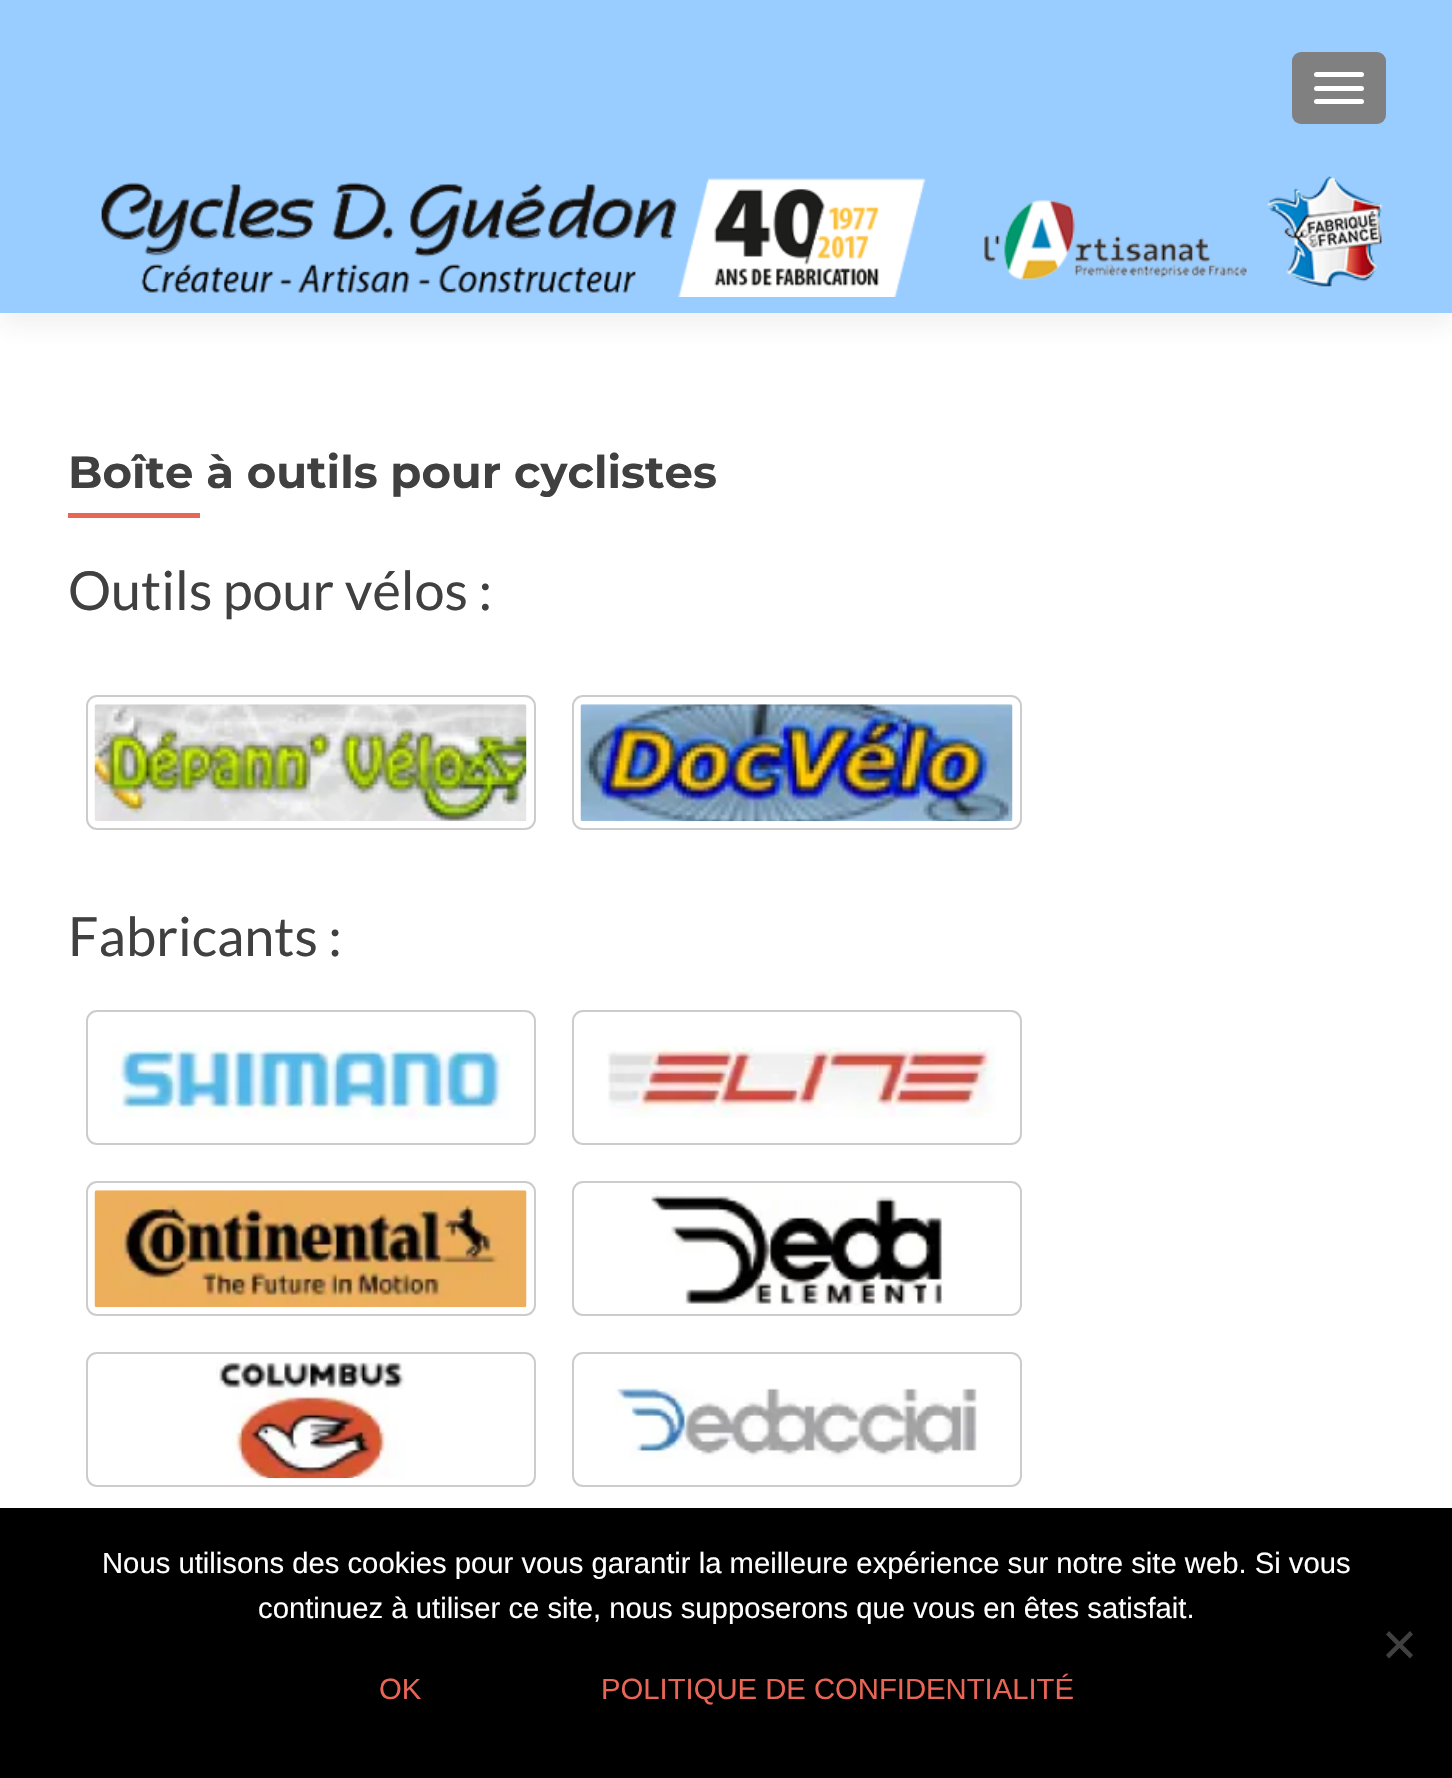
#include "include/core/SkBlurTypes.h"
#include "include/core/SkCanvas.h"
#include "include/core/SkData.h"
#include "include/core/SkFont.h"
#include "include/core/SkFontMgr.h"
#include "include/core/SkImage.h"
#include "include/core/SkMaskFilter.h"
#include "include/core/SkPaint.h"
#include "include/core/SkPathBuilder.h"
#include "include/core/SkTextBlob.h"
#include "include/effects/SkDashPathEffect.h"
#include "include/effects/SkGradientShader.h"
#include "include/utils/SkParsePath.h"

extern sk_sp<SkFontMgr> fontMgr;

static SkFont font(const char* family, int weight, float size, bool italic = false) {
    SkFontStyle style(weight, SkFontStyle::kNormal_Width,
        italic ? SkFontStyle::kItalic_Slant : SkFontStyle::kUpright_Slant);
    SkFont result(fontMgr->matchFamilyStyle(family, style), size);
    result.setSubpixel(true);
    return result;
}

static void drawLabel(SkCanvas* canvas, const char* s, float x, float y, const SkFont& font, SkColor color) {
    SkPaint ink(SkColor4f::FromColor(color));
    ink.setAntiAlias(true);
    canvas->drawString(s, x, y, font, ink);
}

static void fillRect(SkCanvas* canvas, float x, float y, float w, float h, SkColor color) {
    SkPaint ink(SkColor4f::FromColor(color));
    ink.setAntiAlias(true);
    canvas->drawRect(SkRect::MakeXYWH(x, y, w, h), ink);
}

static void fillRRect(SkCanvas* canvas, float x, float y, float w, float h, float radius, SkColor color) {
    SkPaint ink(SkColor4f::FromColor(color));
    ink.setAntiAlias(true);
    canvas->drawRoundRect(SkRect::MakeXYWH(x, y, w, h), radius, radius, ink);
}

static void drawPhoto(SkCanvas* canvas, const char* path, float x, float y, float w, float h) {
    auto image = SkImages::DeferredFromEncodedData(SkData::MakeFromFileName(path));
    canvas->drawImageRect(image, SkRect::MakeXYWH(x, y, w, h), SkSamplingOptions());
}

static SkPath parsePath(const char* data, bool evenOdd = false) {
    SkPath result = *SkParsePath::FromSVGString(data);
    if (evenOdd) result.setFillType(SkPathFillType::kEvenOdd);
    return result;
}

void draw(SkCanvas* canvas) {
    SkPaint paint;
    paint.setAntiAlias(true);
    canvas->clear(0xFFFFFFFF);
    paint.setColor(0x14323232);
    paint.setMaskFilter(SkMaskFilter::MakeBlur(kNormal_SkBlurStyle, 12.5f));
    canvas->drawRect(SkRect::MakeXYWH(0, 11, 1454, 313), paint);
    paint.setMaskFilter(nullptr);
    fillRect(canvas, 0, 0, 1452, 313, 0xFF99CCFF);
    fillRRect(canvas, 1292, 52, 94, 72, 9, 0xFF808080);
    fillRRect(canvas, 1314, 72, 50, 5, 2.5f, 0xFFFFFFFF);
    fillRRect(canvas, 1314, 86, 50, 5, 2.5f, 0xFFFFFFFF);
    fillRRect(canvas, 1314, 99, 50, 5, 2.5f, 0xFFFFFFFF);
    drawPhoto(canvas, "assets/img1.png", 101, 175, 1282, 122);
    SkFont font1 = font("Montserrat", 700, 45);
    drawLabel(canvas, "Boîte à outils pour cyclistes", 68, 488, font1, 0xFF404040);
    fillRect(canvas, 68, 513, 132, 5, 0xFFE96656);
    SkFont font2 = font("Lato", 400, 54);
    drawLabel(canvas, "Outils pour vélos :", 68, 610, font2, 0xFF404040);
    paint.setStroke(true);
    paint.setStrokeWidth(2);
    paint.setColor(0xFFCCCCCC);
    canvas->drawRoundRect(SkRect::MakeXYWH(87, 696, 448, 133), 10, 10, paint);
    drawPhoto(canvas, "assets/img2.png", 94, 704, 433, 118);
    canvas->drawRoundRect(SkRect::MakeXYWH(573, 696, 448, 133), 10, 10, paint);
    drawPhoto(canvas, "assets/img3.png", 580, 704, 433, 118);
    drawLabel(canvas, "Fabricants :", 68, 956, font2, 0xFF404040);
    canvas->drawRoundRect(SkRect::MakeXYWH(87, 1011, 448, 133), 10, 10, paint);
    drawPhoto(canvas, "assets/img4.png", 110, 1043, 400, 76);
    canvas->drawRoundRect(SkRect::MakeXYWH(573, 1011, 448, 133), 10, 10, paint);
    drawPhoto(canvas, "assets/img5.png", 607, 1045, 389, 73);
    canvas->drawRoundRect(SkRect::MakeXYWH(87, 1182, 448, 133), 10, 10, paint);
    drawPhoto(canvas, "assets/img6.png", 94, 1190, 433, 118);
    canvas->drawRoundRect(SkRect::MakeXYWH(573, 1182, 448, 133), 10, 10, paint);
    drawPhoto(canvas, "assets/img7.png", 651, 1192, 293, 114);
    canvas->drawRoundRect(SkRect::MakeXYWH(87, 1353, 448, 133), 10, 10, paint);
    drawPhoto(canvas, "assets/img8.png", 216, 1362, 190, 117);
    canvas->drawRoundRect(SkRect::MakeXYWH(573, 1353, 448, 133), 10, 10, paint);
    drawPhoto(canvas, "assets/img9.png", 614, 1387, 363, 72);
    fillRect(canvas, 0, 1508, 1452, 270, 0xFF000000);
    SkFont font3 = font("Liberation Sans", 400, 29.25f);
    drawLabel(canvas, "Nous utilisons des cookies pour vous garantir la meilleure expérience sur notre site web. Si vous", 102, 1573, font3, 0xFFFFFFFF);
    drawLabel(canvas, "continuez à utiliser ce site, nous supposerons que vous en êtes satisfait.", 258, 1618, font3, 0xFFFFFFFF);
    paint.setStroke(false);
    paint.setColor(0xFF404040);
    canvas->drawPath(parsePath("M1410 1631L1413 1634.5L1389 1658.5L1386 1655Z"), paint);
    canvas->drawPath(parsePath("M1386 1634.5L1389 1631L1413 1655L1410 1658.5Z"), paint);
    drawLabel(canvas, "OK", 379, 1699, font3, 0xFFE96656);
    drawLabel(canvas, "POLITIQUE DE CONFIDENTIALITÉ", 601, 1699, font3, 0xFFE96656);
}
